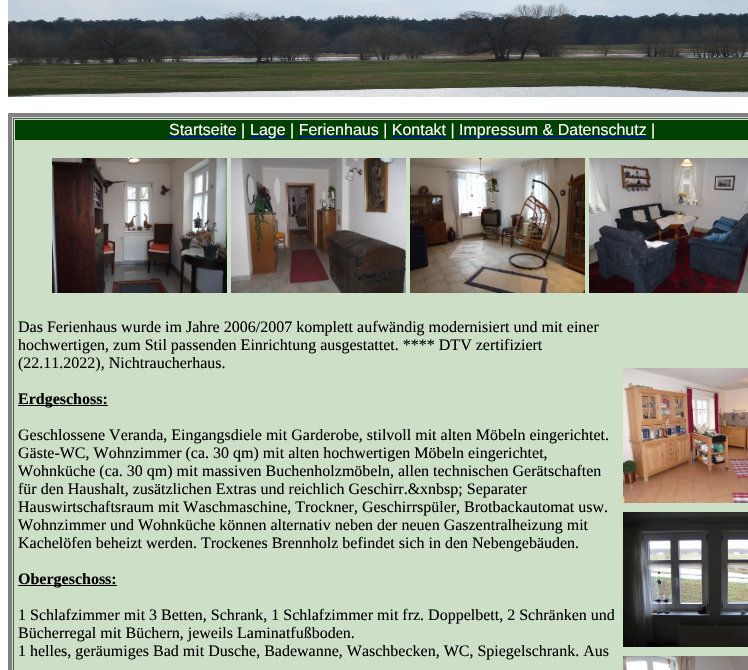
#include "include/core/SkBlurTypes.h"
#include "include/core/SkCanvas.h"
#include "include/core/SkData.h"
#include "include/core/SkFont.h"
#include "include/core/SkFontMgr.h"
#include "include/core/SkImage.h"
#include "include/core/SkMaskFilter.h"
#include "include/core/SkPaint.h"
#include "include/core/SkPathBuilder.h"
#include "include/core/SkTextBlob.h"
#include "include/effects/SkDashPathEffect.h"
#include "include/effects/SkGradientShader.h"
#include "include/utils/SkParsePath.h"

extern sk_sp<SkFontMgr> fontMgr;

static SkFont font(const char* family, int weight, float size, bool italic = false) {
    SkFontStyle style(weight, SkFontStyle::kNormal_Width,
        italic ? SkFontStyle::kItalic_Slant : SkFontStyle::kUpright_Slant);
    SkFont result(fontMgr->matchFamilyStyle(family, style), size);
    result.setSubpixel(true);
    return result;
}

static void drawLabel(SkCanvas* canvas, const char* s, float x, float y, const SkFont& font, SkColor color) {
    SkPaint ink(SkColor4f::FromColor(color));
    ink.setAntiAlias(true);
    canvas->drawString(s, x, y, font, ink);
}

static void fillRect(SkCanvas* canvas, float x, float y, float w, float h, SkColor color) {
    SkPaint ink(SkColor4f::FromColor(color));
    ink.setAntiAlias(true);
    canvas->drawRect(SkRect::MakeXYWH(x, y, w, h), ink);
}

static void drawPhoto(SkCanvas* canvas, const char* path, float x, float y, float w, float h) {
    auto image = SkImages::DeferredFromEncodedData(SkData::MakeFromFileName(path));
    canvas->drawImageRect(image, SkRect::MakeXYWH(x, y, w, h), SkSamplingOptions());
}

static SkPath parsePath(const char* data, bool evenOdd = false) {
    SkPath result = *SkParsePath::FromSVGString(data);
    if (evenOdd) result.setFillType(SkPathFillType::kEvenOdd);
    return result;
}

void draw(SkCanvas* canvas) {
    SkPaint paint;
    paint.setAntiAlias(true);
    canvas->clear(0xFFFFFFFF);
    drawPhoto(canvas, "assets/img1.png", 8, 0, 740, 97);
    fillRect(canvas, 8, 113, 740, 557, 0xFFCDE0C7);
    paint.setColor(0xFF808080);
    canvas->drawPath(parsePath("M8 113H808L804 117H12Z"), paint);
    canvas->drawPath(parsePath("M8 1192V113L12 117V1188Z"), paint);
    fillRect(canvas, 13, 118, 735, 1, 0xFF555555);
    fillRect(canvas, 13, 118, 1, 552, 0xFF555555);
    fillRect(canvas, 15, 120, 733, 20, 0xFF004000);
    fillRect(canvas, 169, 136, 68, 1, 0xFF0000EE);
    SkFont font1 = font("Liberation Sans", 400, 16);
    drawLabel(canvas, "Startseite |", 169, 135, font1, 0xFFFFFFFF);
    fillRect(canvas, 250, 136, 36, 1, 0xFF0000EE);
    drawLabel(canvas, "Lage | Ferienhaus | Kontakt |", 250, 135, font1, 0xFFFFFFFF);
    fillRect(canvas, 299, 136, 80, 1, 0xFF0000EE);
    fillRect(canvas, 392, 136, 54, 1, 0xFF0000EE);
    fillRect(canvas, 459, 136, 188, 1, 0xFF0000EE);
    drawLabel(canvas, "Impressum & Datenschutz |", 459, 135, font1, 0xFFFFFFFF);
    drawPhoto(canvas, "assets/img2.png", 52, 158, 175, 135);
    drawPhoto(canvas, "assets/img3.png", 231, 158, 175, 135);
    drawPhoto(canvas, "assets/img4.png", 410, 158, 175, 135);
    drawPhoto(canvas, "assets/img5.png", 589, 158, 159, 135);
    SkFont font2 = font("Liberation Serif", 400, 16);
    drawLabel(canvas, "Das Ferienhaus wurde im Jahre 2006/2007 komplett aufwändig modernisiert und mit einer", 18, 332, font2, 0xFF000000);
    drawLabel(canvas, "hochwertigen, zum Stil passenden Einrichtung ausgestattet. **** DTV zertifiziert", 18, 350, font2, 0xFF000000);
    drawLabel(canvas, "(22.11.2022), Nichtraucherhaus.", 18, 368, font2, 0xFF000000);
    fillRect(canvas, 18, 405, 90, 1, 0xFF000000);
    SkFont font3 = font("Liberation Serif", 700, 16);
    drawLabel(canvas, "Erdgeschoss:", 18, 404, font3, 0xFF000000);
    drawLabel(canvas, "Geschlossene Veranda, Eingangsdiele mit Garderobe, stilvoll mit alten Möbeln eingerichtet.", 18, 440, font2, 0xFF000000);
    drawLabel(canvas, "Gäste-WC, Wohnzimmer (ca. 30 qm) mit alten hochwertigen Möbeln eingerichtet,", 18, 458, font2, 0xFF000000);
    drawLabel(canvas, "Wohnküche (ca. 30 qm) mit massiven Buchenholzmöbeln, allen technischen Gerätschaften", 18, 476, font2, 0xFF000000);
    drawLabel(canvas, "für den Haushalt, zusätzlichen Extras und reichlich Geschirr.&xnbsp; Separater", 18, 494, font2, 0xFF000000);
    drawLabel(canvas, "Hauswirtschaftsraum mit Waschmaschine, Trockner, Geschirrspüler, Brotbackautomat usw.", 18, 512, font2, 0xFF000000);
    drawLabel(canvas, "Wohnzimmer und Wohnküche können alternativ neben der neuen Gaszentralheizung mit", 18, 530, font2, 0xFF000000);
    drawLabel(canvas, "Kachelöfen beheizt werden. Trockenes Brennholz befindet sich in den Nebengebäuden.", 18, 548, font2, 0xFF000000);
    fillRect(canvas, 18, 585, 99, 1, 0xFF000000);
    drawLabel(canvas, "Obergeschoss:", 18, 584, font3, 0xFF000000);
    drawLabel(canvas, "1 Schlafzimmer mit 3 Betten, Schrank, 1 Schlafzimmer mit frz. Doppelbett, 2 Schränken und", 18, 620, font2, 0xFF000000);
    drawLabel(canvas, "Bücherregal mit Büchern, jeweils Laminatfußboden.", 18, 638, font2, 0xFF000000);
    drawLabel(canvas, "1 helles, geräumiges Bad mit Dusche, Badewanne, Waschbecken, WC, Spiegelschrank. Aus", 18, 656, font2, 0xFF000000);
    drawPhoto(canvas, "assets/img6.png", 623, 368, 125, 135);
    drawPhoto(canvas, "assets/img7.png", 623, 512, 125, 135);
    drawPhoto(canvas, "assets/img8.png", 623, 656, 125, 14);
}
